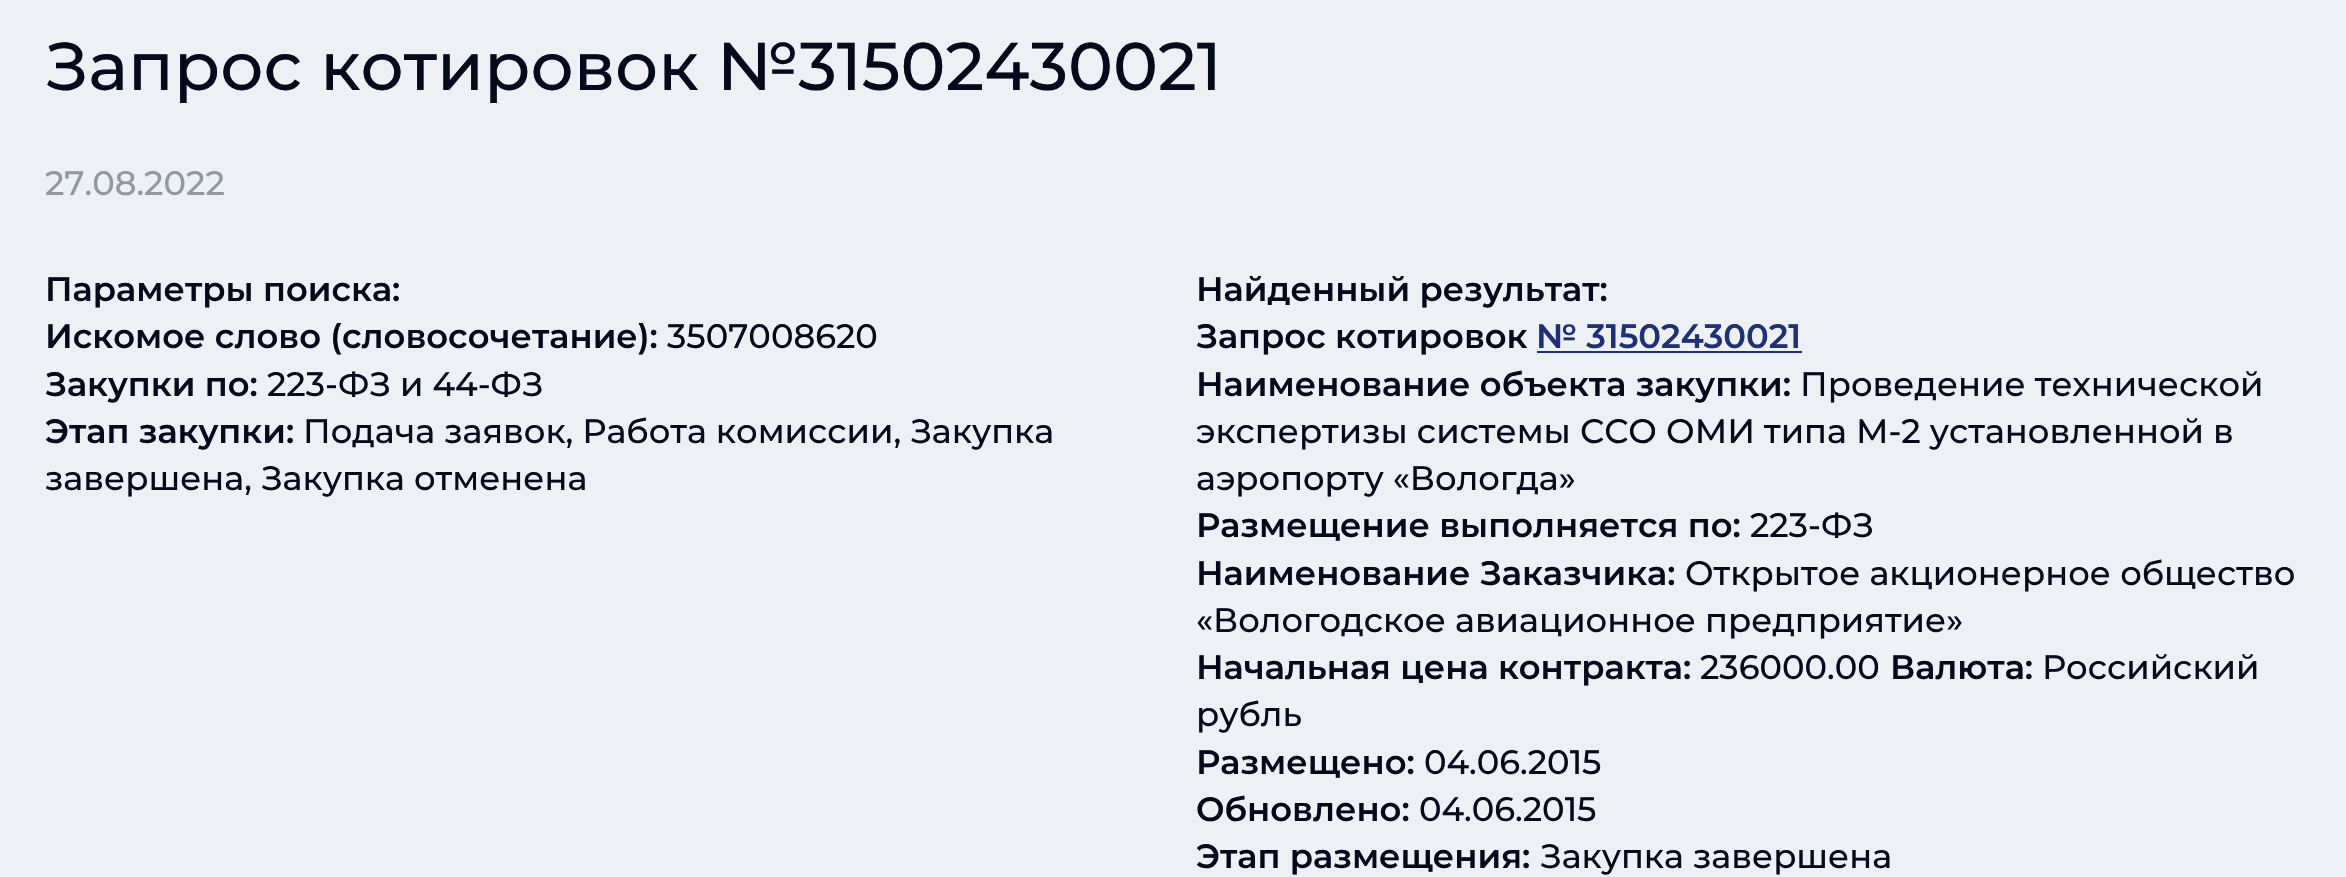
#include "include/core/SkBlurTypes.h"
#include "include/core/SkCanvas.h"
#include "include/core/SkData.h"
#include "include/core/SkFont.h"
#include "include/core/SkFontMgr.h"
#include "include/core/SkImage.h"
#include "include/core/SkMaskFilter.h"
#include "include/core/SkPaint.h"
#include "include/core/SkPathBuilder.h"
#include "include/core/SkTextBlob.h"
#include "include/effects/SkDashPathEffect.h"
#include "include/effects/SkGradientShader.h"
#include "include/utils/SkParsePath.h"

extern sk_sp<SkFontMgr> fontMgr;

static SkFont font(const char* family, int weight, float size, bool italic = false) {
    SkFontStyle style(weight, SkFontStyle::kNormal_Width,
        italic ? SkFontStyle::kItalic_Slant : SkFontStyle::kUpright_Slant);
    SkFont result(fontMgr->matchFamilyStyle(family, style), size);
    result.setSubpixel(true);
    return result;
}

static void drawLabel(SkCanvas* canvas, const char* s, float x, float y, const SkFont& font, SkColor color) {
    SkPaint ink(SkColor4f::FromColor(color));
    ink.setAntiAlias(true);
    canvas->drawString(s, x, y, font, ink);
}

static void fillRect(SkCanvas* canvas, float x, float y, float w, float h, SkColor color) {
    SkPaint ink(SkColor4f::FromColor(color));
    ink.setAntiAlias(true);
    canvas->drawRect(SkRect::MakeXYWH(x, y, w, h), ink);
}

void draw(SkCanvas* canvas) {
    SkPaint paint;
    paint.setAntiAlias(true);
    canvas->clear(0xFFEDF0F4);
    SkFont font1 = font("Montserrat", 100, 67.5f);
    drawLabel(canvas, "Запрос котировок №31502430021", 45, 90, font1, 0xFF040A1B);
    SkFont font2 = font("Montserrat", 100, 33.75f);
    drawLabel(canvas, "27.08.2022", 45, 195, font2, 0xFF9397A2);
    SkFont font3 = font("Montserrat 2", 100, 33.75f);
    drawLabel(canvas, "Параметры поиска:", 45, 301, font3, 0xFF040A1B);
    drawLabel(canvas, "Искомое слово (словосочетание):", 45, 348, font3, 0xFF040A1B);
    drawLabel(canvas, "3507008620", 667, 348, font2, 0xFF040A1B);
    drawLabel(canvas, "Закупки по:", 45, 396, font3, 0xFF040A1B);
    drawLabel(canvas, "223-ФЗ и 44-ФЗ", 267, 396, font2, 0xFF040A1B);
    drawLabel(canvas, "Этап закупки:", 45, 443, font3, 0xFF040A1B);
    drawLabel(canvas, "Подача заявок, Работа комиссии, Закупка", 303, 443, font2, 0xFF040A1B);
    drawLabel(canvas, "завершена, Закупка отменена", 45, 490, font2, 0xFF040A1B);
    drawLabel(canvas, "Найденный результат:", 1196, 301, font3, 0xFF040A1B);
    drawLabel(canvas, "Запрос котировок", 1196, 348, font3, 0xFF040A1B);
    drawLabel(canvas, "№ 31502430021", 1536, 348, font3, 0xFF1F2F7C);
    fillRect(canvas, 1537, 351, 265, 2, 0xFF1F2F7C);
    drawLabel(canvas, "Наименование объекта закупки:", 1196, 396, font3, 0xFF040A1B);
    drawLabel(canvas, "Проведение технической", 1800, 396, font2, 0xFF040A1B);
    drawLabel(canvas, "экспертизы системы ССО ОМИ типа М-2 установленной в", 1196, 443, font2, 0xFF040A1B);
    drawLabel(canvas, "аэропорту «Вологда»", 1196, 490, font2, 0xFF040A1B);
    drawLabel(canvas, "Размещение выполняется по:", 1196, 537, font3, 0xFF040A1B);
    drawLabel(canvas, "223-ФЗ", 1750, 537, font2, 0xFF040A1B);
    drawLabel(canvas, "Наименование Заказчика:", 1196, 585, font3, 0xFF040A1B);
    drawLabel(canvas, "Открытое акционерное общество", 1685, 585, font2, 0xFF040A1B);
    drawLabel(canvas, "«Вологодское авиационное предприятие»", 1196, 632, font2, 0xFF040A1B);
    drawLabel(canvas, "Начальная цена контракта:", 1196, 679, font3, 0xFF040A1B);
    drawLabel(canvas, "236000.00", 1700, 679, font2, 0xFF040A1B);
    drawLabel(canvas, "Валюта:", 1890, 679, font3, 0xFF040A1B);
    drawLabel(canvas, "Российский", 2042, 679, font2, 0xFF040A1B);
    drawLabel(canvas, "рубль", 1196, 726, font2, 0xFF040A1B);
    drawLabel(canvas, "Размещено:", 1196, 774, font3, 0xFF040A1B);
    drawLabel(canvas, "04.06.2015", 1424, 774, font2, 0xFF040A1B);
    drawLabel(canvas, "Обновлено:", 1196, 821, font3, 0xFF040A1B);
    drawLabel(canvas, "04.06.2015", 1419, 821, font2, 0xFF040A1B);
    drawLabel(canvas, "Этап размещения:", 1196, 868, font3, 0xFF040A1B);
    drawLabel(canvas, "Закупка завершена", 1540, 868, font2, 0xFF040A1B);
}
